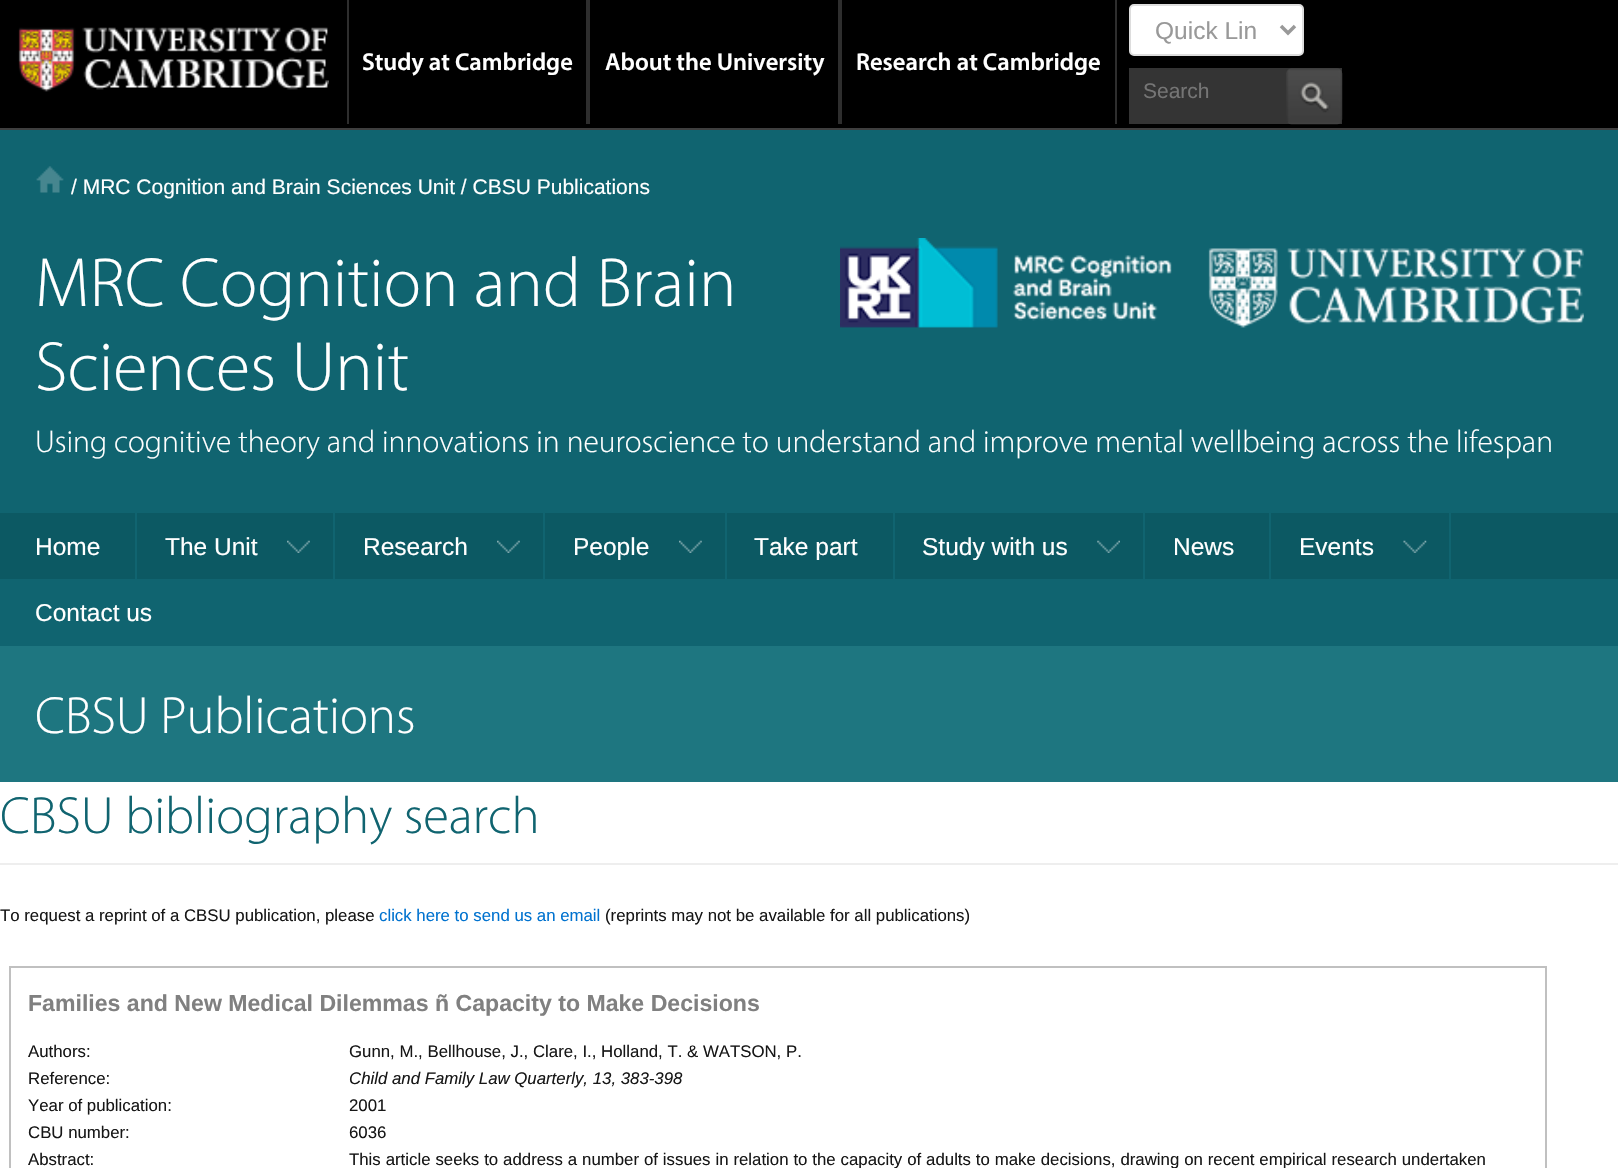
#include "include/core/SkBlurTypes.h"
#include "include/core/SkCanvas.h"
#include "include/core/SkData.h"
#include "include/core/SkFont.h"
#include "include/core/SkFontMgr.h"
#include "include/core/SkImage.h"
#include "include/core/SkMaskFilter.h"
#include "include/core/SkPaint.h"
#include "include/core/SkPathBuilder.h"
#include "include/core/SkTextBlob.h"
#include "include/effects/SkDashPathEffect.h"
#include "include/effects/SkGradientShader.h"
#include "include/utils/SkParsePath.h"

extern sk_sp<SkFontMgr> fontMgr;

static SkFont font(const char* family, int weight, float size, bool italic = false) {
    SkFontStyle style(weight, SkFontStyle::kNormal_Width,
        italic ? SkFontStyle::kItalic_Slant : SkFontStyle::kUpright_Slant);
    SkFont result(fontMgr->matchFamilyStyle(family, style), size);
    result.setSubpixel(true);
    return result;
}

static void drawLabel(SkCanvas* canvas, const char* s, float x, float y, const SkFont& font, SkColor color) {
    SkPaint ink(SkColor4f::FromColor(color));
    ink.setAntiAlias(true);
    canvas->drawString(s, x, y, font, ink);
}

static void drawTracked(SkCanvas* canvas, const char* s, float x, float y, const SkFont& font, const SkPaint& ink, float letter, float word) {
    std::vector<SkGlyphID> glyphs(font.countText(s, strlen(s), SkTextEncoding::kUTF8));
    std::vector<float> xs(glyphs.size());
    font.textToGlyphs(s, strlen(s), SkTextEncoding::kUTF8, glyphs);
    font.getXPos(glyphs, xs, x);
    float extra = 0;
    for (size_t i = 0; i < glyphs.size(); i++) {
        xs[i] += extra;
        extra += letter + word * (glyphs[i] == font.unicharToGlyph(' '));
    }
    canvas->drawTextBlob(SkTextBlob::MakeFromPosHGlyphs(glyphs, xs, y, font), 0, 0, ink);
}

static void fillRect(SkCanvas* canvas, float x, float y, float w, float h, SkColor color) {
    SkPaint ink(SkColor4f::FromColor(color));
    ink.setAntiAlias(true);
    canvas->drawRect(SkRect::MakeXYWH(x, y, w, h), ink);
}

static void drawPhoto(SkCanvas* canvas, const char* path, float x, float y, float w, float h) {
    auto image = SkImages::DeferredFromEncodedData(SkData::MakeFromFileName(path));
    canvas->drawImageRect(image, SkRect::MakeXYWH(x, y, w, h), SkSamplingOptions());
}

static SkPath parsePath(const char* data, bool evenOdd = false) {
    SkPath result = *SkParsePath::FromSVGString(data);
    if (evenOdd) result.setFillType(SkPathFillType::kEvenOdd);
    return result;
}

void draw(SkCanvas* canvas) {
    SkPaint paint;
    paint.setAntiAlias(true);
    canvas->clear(0xFFFFFFFF);
    fillRect(canvas, 0, 0, 1618, 128, 0xFF000000);
    paint.setColor(0xFFFFFFFF);
    canvas->drawRoundRect(SkRect::MakeXYWH(1130, 5, 173, 50), 4, 4, paint);
    paint.setStroke(true);
    paint.setStrokeWidth(2);
    paint.setColor(0xFFDDDDDD);
    canvas->drawRoundRect(SkRect::MakeXYWH(1130, 5, 173, 50), 4, 4, paint);
    paint.setStrokeWidth(3.5f);
    paint.setColor(0xFF999999);
    canvas->drawPath(parsePath("M1281 26L1288 33L1295 26"), paint);
    SkFont font1 = font("Liberation Sans", 400, 24.5f);
    drawLabel(canvas, "Quick Lin", 1155, 39, font1, 0xFF999999);
    drawPhoto(canvas, "assets/img1.png", 18, 27, 311, 65);
    fillRect(canvas, 586, 0, 4, 124, 0xFF2E2E2E);
    fillRect(canvas, 347, 0, 2, 124, 0xFF2E2E2E);
    SkFont font2 = font("Myriad", 600, 24.5f);
    drawLabel(canvas, "Study at Cambridge", 362, 70, font2, 0xFFFFFFFF);
    fillRect(canvas, 838, 0, 4, 124, 0xFF2E2E2E);
    drawLabel(canvas, "About the University", 605, 70, font2, 0xFFFFFFFF);
    fillRect(canvas, 1115, 0, 2, 124, 0xFF2E2E2E);
    drawLabel(canvas, "Research at Cambridge", 856, 70, font2, 0xFFFFFFFF);
    fillRect(canvas, 1129, 68, 213, 56, 0xFF343434);
    SkFont font3 = font("Liberation Sans", 400, 21);
    drawLabel(canvas, "Search", 1143, 98, font3, 0xFF757575);
    drawPhoto(canvas, "assets/img2.png", 1286, 68, 57, 57);
    fillRect(canvas, 0, 128, 1618, 2, 0xFF3F3F3F);
    fillRect(canvas, 0, 130, 1618, 516, 0xFF106470);
    drawPhoto(canvas, "assets/img3.png", 36, 166, 28, 27);
    drawLabel(canvas, "/ MRC Cognition and Brain Sciences Unit / CBSU Publications", 71, 194, font3, 0xFFFFFFFF);
    SkFont font4 = font("Myriad", 300, 70);
    drawLabel(canvas, "MRC Cognition and Brain", 35, 306, font4, 0xFFFFFFFF);
    drawPhoto(canvas, "assets/img4.png", 840, 238, 744, 90);
    drawLabel(canvas, "Sciences Unit", 35, 390, font4, 0xFFFFFFFF);
    SkFont font5 = font("Myriad", 300, 31.5f);
    drawLabel(canvas, "Using cognitive theory and innovations in neuroscience to understand and improve mental wellbeing across the lifespan", 35, 452, font5, 0xFFFFFFFF);
    fillRect(canvas, 0, 513, 1618, 66, 0xFF0C5963);
    fillRect(canvas, 135, 513, 2, 66, 0xFF106470);
    drawLabel(canvas, "Home", 35, 555, font1, 0xFFFFFFFF);
    fillRect(canvas, 333, 513, 2, 66, 0xFF106470);
    drawLabel(canvas, "The Unit", 165, 555, font1, 0xFFFFFFFF);
    drawPhoto(canvas, "assets/img5.png", 287, 540, 23, 13);
    fillRect(canvas, 543, 513, 2, 66, 0xFF106470);
    drawLabel(canvas, "Research", 363, 555, font1, 0xFFFFFFFF);
    drawPhoto(canvas, "assets/img5.png", 497, 540, 23, 13);
    fillRect(canvas, 725, 513, 2, 66, 0xFF106470);
    drawLabel(canvas, "People", 573, 555, font1, 0xFFFFFFFF);
    drawPhoto(canvas, "assets/img5.png", 679, 540, 23, 13);
    fillRect(canvas, 893, 513, 2, 66, 0xFF106470);
    drawLabel(canvas, "Take part", 754, 555, font1, 0xFFFFFFFF);
    fillRect(canvas, 1143, 513, 2, 66, 0xFF106470);
    drawLabel(canvas, "Study with us", 922, 555, font1, 0xFFFFFFFF);
    drawPhoto(canvas, "assets/img6.png", 1097, 540, 23, 13);
    fillRect(canvas, 1269, 513, 2, 66, 0xFF106470);
    drawLabel(canvas, "News", 1173, 555, font1, 0xFFFFFFFF);
    fillRect(canvas, 1449, 513, 2, 66, 0xFF106470);
    drawLabel(canvas, "Events", 1299, 555, font1, 0xFFFFFFFF);
    drawPhoto(canvas, "assets/img7.png", 1403, 540, 24, 13);
    drawLabel(canvas, "Contact us", 35, 621, font1, 0xFFFFFFFF);
    fillRect(canvas, 0, 646, 1618, 136, 0xFF1E7680);
    SkFont font6 = font("Myriad", 300, 52.5f);
    drawLabel(canvas, "CBSU Publications", 35, 733, font6, 0xFFFFFFFF);
    drawLabel(canvas, "CBSU bibliography search", 0, 833, font6, 0xFF106470);
    fillRect(canvas, 0, 863, 1618, 2, 0xFFEEEEEE);
    SkFont font7 = font("Liberation Sans", 400, 16.8f);
    drawLabel(canvas, "To request a reprint of a CBSU publication, please", 0, 921, font7, 0xFF171717);
    drawLabel(canvas, "click here to send us an email", 379, 921, font7, 0xFF0072CF);
    drawLabel(canvas, "(reprints may not be available for all publications)", 605, 921, font7, 0xFF171717);
    paint.setStrokeWidth(2);
    paint.setColor(0xFFC0C0C0);
    canvas->drawRect(SkRect::MakeXYWH(10, 967, 1536, 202), paint);
    SkFont font8 = font("Liberation Sans", 700, 23.1f);
    drawLabel(canvas, "Families and New Medical Dilemmas ñ Capacity to Make Decisions", 28, 1011, font8, 0xFF808080);
    drawLabel(canvas, "Authors:", 28, 1057, font7, 0xFF171717);
    drawLabel(canvas, "Gunn, M., Bellhouse, J., Clare, I., Holland, T. & WATSON, P.", 349, 1057, font7, 0xFF171717);
    drawLabel(canvas, "Reference:", 28, 1084, font7, 0xFF171717);
    SkFont font9 = font("Liberation Sans", 400, 16.8f, true);
    drawLabel(canvas, "Child and Family Law Quarterly, 13, 383-398", 349, 1084, font9, 0xFF171717);
    drawLabel(canvas, "Year of publication:", 28, 1111, font7, 0xFF171717);
    drawLabel(canvas, "2001", 349, 1111, font7, 0xFF171717);
    drawLabel(canvas, "CBU number:", 28, 1138, font7, 0xFF171717);
    drawLabel(canvas, "6036", 349, 1138, font7, 0xFF171717);
    drawLabel(canvas, "Abstract:", 28, 1165, font7, 0xFF171717);
    paint.setStroke(false);
    paint.setColor(0xFF171717);
    drawTracked(canvas, "This article seeks to address a number of issues in relation to the capacity of adults to make decisions, drawing on recent empirical research undertaken", 349, 1165, font7, paint, 0, 0.25f);
}
